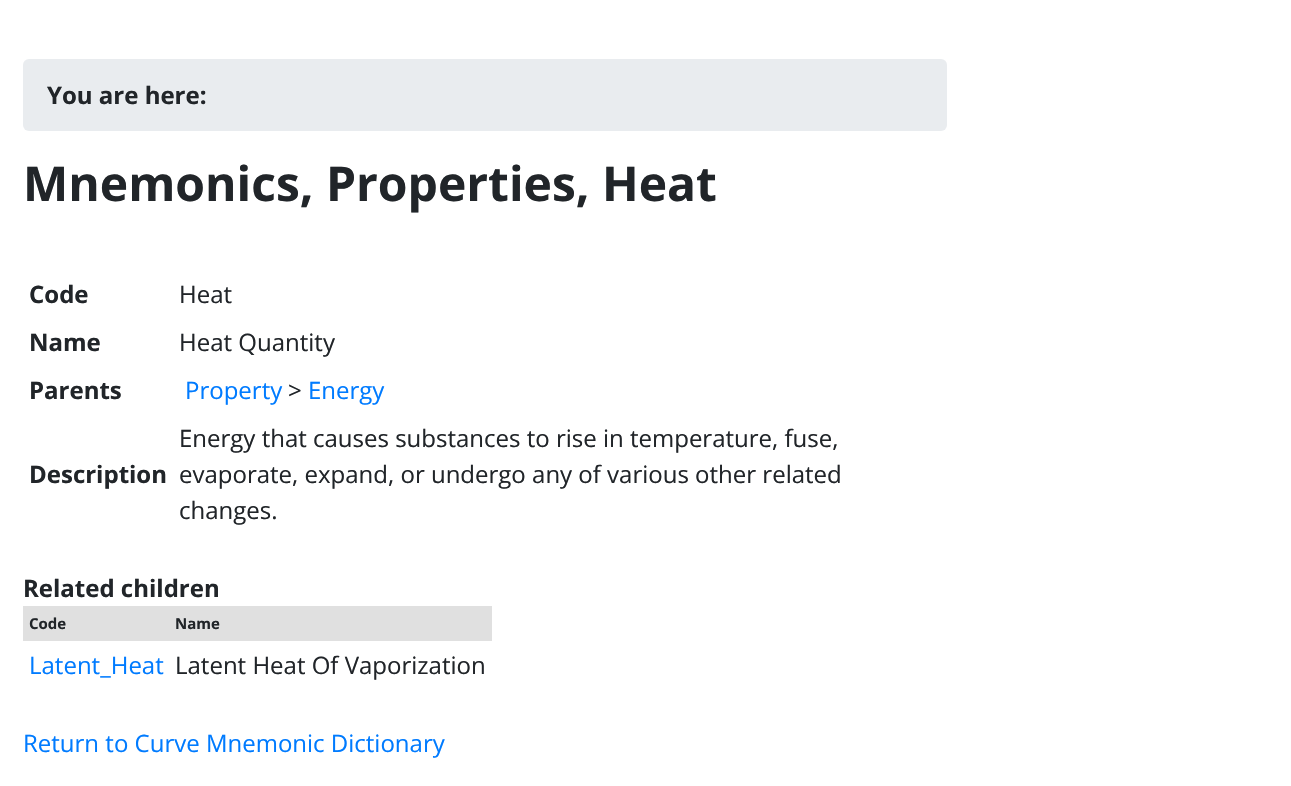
#include "include/core/SkBlurTypes.h"
#include "include/core/SkCanvas.h"
#include "include/core/SkData.h"
#include "include/core/SkFont.h"
#include "include/core/SkFontMgr.h"
#include "include/core/SkImage.h"
#include "include/core/SkMaskFilter.h"
#include "include/core/SkPaint.h"
#include "include/core/SkPathBuilder.h"
#include "include/core/SkTextBlob.h"
#include "include/effects/SkDashPathEffect.h"
#include "include/effects/SkGradientShader.h"
#include "include/utils/SkParsePath.h"

extern sk_sp<SkFontMgr> fontMgr;

static SkFont font(const char* family, int weight, float size, bool italic = false) {
    SkFontStyle style(weight, SkFontStyle::kNormal_Width,
        italic ? SkFontStyle::kItalic_Slant : SkFontStyle::kUpright_Slant);
    SkFont result(fontMgr->matchFamilyStyle(family, style), size);
    result.setSubpixel(true);
    return result;
}

static void drawLabel(SkCanvas* canvas, const char* s, float x, float y, const SkFont& font, SkColor color) {
    SkPaint ink(SkColor4f::FromColor(color));
    ink.setAntiAlias(true);
    canvas->drawString(s, x, y, font, ink);
}

static void fillRect(SkCanvas* canvas, float x, float y, float w, float h, SkColor color) {
    SkPaint ink(SkColor4f::FromColor(color));
    ink.setAntiAlias(true);
    canvas->drawRect(SkRect::MakeXYWH(x, y, w, h), ink);
}

static void fillRRect(SkCanvas* canvas, float x, float y, float w, float h, float radius, SkColor color) {
    SkPaint ink(SkColor4f::FromColor(color));
    ink.setAntiAlias(true);
    canvas->drawRoundRect(SkRect::MakeXYWH(x, y, w, h), radius, radius, ink);
}

void draw(SkCanvas* canvas) {
    SkPaint paint;
    paint.setAntiAlias(true);
    canvas->clear(0xFFFFFFFF);
    fillRRect(canvas, 23, 59, 924, 72, 6, 0xFFE9ECEF);
    SkFont font1 = font("Open Sans", 700, 24);
    drawLabel(canvas, "You are here:", 47, 104, font1, 0xFF212529);
    SkFont font2 = font("Open Sans", 700, 48);
    drawLabel(canvas, "Mnemonics, Properties, Heat", 23, 201, font2, 0xFF212529);
    drawLabel(canvas, "Code", 29, 303, font1, 0xFF212529);
    SkFont font3 = font("Open Sans", 400, 24);
    drawLabel(canvas, "Heat", 179, 303, font3, 0xFF212529);
    drawLabel(canvas, "Name", 29, 351, font1, 0xFF212529);
    drawLabel(canvas, "Heat Quantity", 179, 351, font3, 0xFF212529);
    drawLabel(canvas, "Parents", 29, 399, font1, 0xFF212529);
    drawLabel(canvas, "Property", 185, 399, font3, 0xFF007BFF);
    drawLabel(canvas, ">", 288, 399, font3, 0xFF212529);
    drawLabel(canvas, "Energy", 308, 399, font3, 0xFF007BFF);
    drawLabel(canvas, "Description", 29, 483, font1, 0xFF212529);
    drawLabel(canvas, "Energy that causes substances to rise in temperature, fuse,", 179, 447, font3, 0xFF212529);
    drawLabel(canvas, "evaporate, expand, or undergo any of various other related", 179, 483, font3, 0xFF212529);
    drawLabel(canvas, "changes.", 179, 519, font3, 0xFF212529);
    drawLabel(canvas, "Related children", 23, 597, font1, 0xFF212529);
    fillRect(canvas, 23, 606, 469, 35, 0xFFE0E0E0);
    SkFont font4 = font("Open Sans", 700, 15);
    drawLabel(canvas, "Code", 29, 629, font4, 0xFF212529);
    drawLabel(canvas, "Name", 175, 629, font4, 0xFF212529);
    drawLabel(canvas, "Latent_Heat", 29, 674, font3, 0xFF007BFF);
    drawLabel(canvas, "Latent Heat Of Vaporization", 175, 674, font3, 0xFF212529);
    drawLabel(canvas, "Return to Curve Mnemonic Dictionary", 23, 752, font3, 0xFF007BFF);
}
